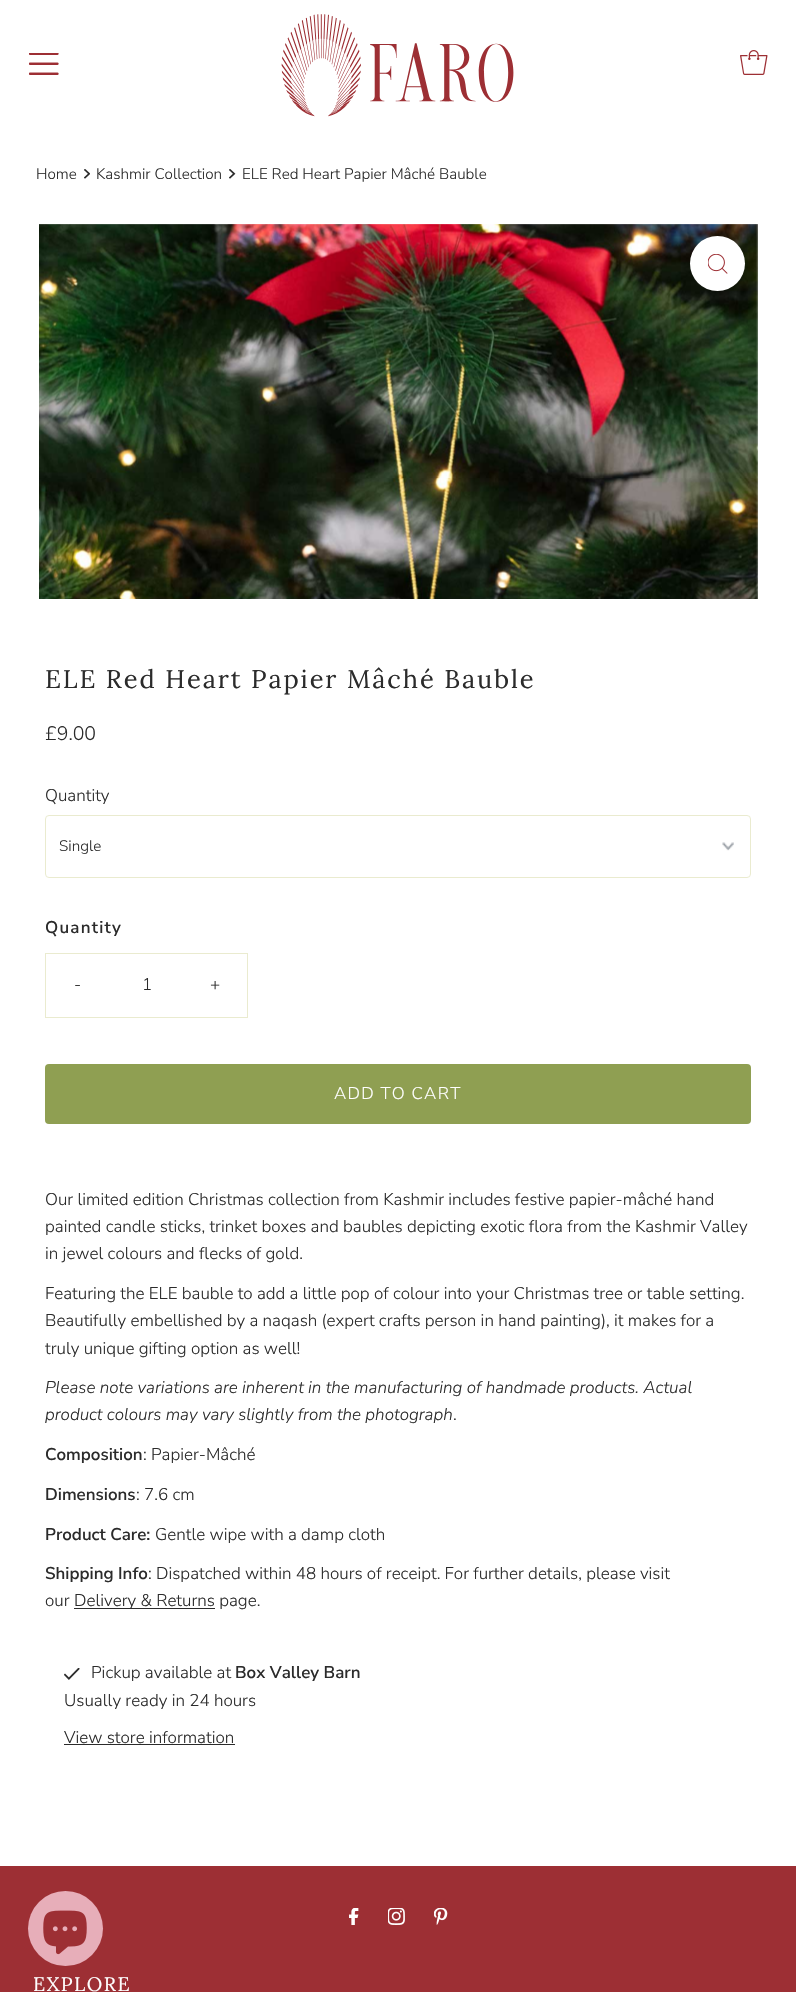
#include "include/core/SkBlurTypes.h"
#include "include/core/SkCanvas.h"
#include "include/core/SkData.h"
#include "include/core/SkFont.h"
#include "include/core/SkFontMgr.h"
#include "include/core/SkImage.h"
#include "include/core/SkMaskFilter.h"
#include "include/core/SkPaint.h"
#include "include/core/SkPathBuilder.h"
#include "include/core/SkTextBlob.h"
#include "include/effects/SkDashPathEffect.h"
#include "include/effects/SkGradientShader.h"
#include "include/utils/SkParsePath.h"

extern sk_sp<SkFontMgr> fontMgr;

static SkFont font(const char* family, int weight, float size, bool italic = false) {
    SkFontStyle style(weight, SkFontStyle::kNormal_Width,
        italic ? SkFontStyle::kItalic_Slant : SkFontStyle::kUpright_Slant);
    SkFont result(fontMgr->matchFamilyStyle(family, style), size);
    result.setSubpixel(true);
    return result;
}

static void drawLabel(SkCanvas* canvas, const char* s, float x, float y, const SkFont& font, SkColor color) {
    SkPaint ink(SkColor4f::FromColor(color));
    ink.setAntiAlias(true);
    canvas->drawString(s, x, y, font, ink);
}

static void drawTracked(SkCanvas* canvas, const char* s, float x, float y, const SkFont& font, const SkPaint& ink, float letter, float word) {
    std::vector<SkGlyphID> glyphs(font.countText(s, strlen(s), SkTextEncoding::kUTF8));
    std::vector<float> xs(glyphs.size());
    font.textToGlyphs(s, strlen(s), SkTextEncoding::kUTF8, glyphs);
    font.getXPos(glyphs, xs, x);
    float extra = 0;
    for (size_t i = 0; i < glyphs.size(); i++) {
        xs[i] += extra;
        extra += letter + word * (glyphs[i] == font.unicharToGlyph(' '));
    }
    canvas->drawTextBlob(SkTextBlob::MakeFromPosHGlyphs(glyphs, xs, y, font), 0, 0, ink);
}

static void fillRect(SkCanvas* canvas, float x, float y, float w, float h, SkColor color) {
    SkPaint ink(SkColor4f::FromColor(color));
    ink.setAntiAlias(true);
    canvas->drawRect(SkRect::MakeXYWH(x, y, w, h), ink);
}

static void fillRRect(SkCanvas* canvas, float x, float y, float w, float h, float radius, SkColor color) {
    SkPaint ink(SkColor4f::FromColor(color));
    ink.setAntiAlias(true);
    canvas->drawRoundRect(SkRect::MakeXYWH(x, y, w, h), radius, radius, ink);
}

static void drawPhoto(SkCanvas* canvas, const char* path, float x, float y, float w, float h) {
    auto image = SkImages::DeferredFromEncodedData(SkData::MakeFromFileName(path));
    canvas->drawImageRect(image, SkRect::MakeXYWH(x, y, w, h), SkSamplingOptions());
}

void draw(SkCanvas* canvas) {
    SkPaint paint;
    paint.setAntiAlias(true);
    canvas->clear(0xFFFFFFFF);
    drawPhoto(canvas, "assets/img1.png", 29, 53, 30, 22);
    drawPhoto(canvas, "assets/img2.png", 281, 14, 233, 103);
    drawPhoto(canvas, "assets/img3.png", 740, 50, 28, 25);
    SkFont font1 = font("Nunito Sans", 300, 15.25f);
    drawLabel(canvas, "Home", 36, 179, font1, 0xFF2B2B2B);
    drawPhoto(canvas, "assets/img4.png", 84, 169, 6, 10);
    drawLabel(canvas, "Kashmir Collection", 96, 179, font1, 0xFF2B2B2B);
    drawPhoto(canvas, "assets/img5.png", 229, 169, 7, 10);
    drawLabel(canvas, "ELE Red Heart Papier Mâché Bauble", 242, 179, font1, 0xFF2B2B2B);
    drawPhoto(canvas, "assets/img6.png", 39, 224, 719, 375);
    paint.setColor(0xFFFFFFFF);
    canvas->drawCircle(717.5f, 263.5f, 27.5f, paint);
    drawPhoto(canvas, "assets/img7.png", 708, 254, 20, 20);
    SkFont font2 = font("Lora", 400, 25.5f);
    paint.setColor(0xFF2B2B2B);
    drawTracked(canvas, "ELE Red Heart Papier Mâché Bauble", 45, 688, font2, paint, 1.9f, 0);
    SkFont font3 = font("Nunito Sans", 300, 19.5f);
    drawLabel(canvas, "£9.00", 45, 740, font3, 0xFF2B2B2B);
    SkFont font4 = font("Nunito Sans", 300, 17);
    drawLabel(canvas, "Quantity", 45, 801, font4, 0xFF2B2B2B);
    drawPhoto(canvas, "assets/img8.png", 722, 842, 12, 9);
    paint.setStroke(true);
    paint.setStrokeWidth(1);
    paint.setColor(0xFFEAEBCF);
    canvas->drawRoundRect(SkRect::MakeXYWH(45.5f, 815.5f, 705, 62), 3.5f, 3.5f, paint);
    drawLabel(canvas, "Single", 59, 851, font1, 0xFF2B2B2B);
    SkFont font5 = font("Nunito Sans", 600, 17);
    paint.setStroke(false);
    paint.setColor(0xFF2B2B2B);
    drawTracked(canvas, "Quantity", 45, 933, font5, paint, 1.25f, 0);
    paint.setStroke(true);
    paint.setColor(0xFFEAEBCF);
    canvas->drawRect(SkRect::MakeXYWH(45.5f, 953.5f, 202, 64), paint);
    paint.setStroke(false);
    paint.setColor(0xFF2B2B2B);
    drawTracked(canvas, "-", 74, 990, font4, paint, 1.25f, 0);
    drawLabel(canvas, "1", 142, 990, font4, 0xFF2B2B2B);
    drawTracked(canvas, "+", 210, 990, font4, paint, 1.25f, 0);
    fillRRect(canvas, 45, 1064, 706, 60, 4, 0xFF8F9F52);
    paint.setColor(0xFFFFFFFF);
    drawTracked(canvas, "ADD TO CART", 334, 1099, font4, paint, 1.25f, 0);
    drawLabel(canvas, "Our limited edition Christmas collection from Kashmir includes festive papier-mâché hand", 45, 1205, font4, 0xFF2B2B2B);
    drawLabel(canvas, "painted candle sticks, trinket boxes and baubles depicting exotic flora from the Kashmir Valley", 45, 1232, font4, 0xFF2B2B2B);
    drawLabel(canvas, "in jewel colours and flecks of gold.", 45, 1259, font4, 0xFF2B2B2B);
    drawLabel(canvas, "Featuring the ELE bauble to add a little pop of colour into your Christmas tree or table setting.", 45, 1299, font4, 0xFF2B2B2B);
    drawLabel(canvas, "Beautifully embellished by a naqash (expert crafts person in hand painting), it makes for a", 45, 1326, font4, 0xFF2B2B2B);
    drawLabel(canvas, "truly unique gifting option as well!", 45, 1354, font4, 0xFF2B2B2B);
    SkFont font6 = font("Nunito Sans", 300, 17, true);
    drawLabel(canvas, "Please note variations are inherent in the manufacturing of handmade products. Actual", 45, 1393, font6, 0xFF2B2B2B);
    drawLabel(canvas, "product colours may vary slightly from the photograph", 45, 1420, font6, 0xFF2B2B2B);
    drawLabel(canvas, ".", 453, 1420, font4, 0xFF2B2B2B);
    drawLabel(canvas, "Composition", 45, 1460, font5, 0xFF2B2B2B);
    drawLabel(canvas, ": Papier-Mâché", 143, 1460, font4, 0xFF2B2B2B);
    drawLabel(canvas, "Dimensions", 45, 1500, font5, 0xFF2B2B2B);
    drawLabel(canvas, ": 7.6 cm", 136, 1500, font4, 0xFF2B2B2B);
    drawLabel(canvas, "Product Care:", 45, 1540, font5, 0xFF2B2B2B);
    drawLabel(canvas, "Gentle wipe with a damp cloth", 155, 1540, font4, 0xFF2B2B2B);
    drawLabel(canvas, "Shipping Info", 45, 1579, font5, 0xFF2B2B2B);
    drawLabel(canvas, ": Dispatched within 48 hours of receipt. For further details, please visit", 148, 1579, font4, 0xFF2B2B2B);
    drawLabel(canvas, "our", 45, 1606, font4, 0xFF2B2B2B);
    fillRect(canvas, 74, 1608, 141, 1, 0xFF2B2B2B);
    drawLabel(canvas, "Delivery & Returns page.", 74, 1606, font4, 0xFF2B2B2B);
    drawPhoto(canvas, "assets/img9.png", 64, 1668, 16, 12);
    drawLabel(canvas, "Pickup available at", 91, 1678, font4, 0xFF2B2B2B);
    drawLabel(canvas, "Box Valley Barn", 235, 1678, font5, 0xFF2B2B2B);
    drawLabel(canvas, "Usually ready in 24 hours", 64, 1706, font4, 0xFF2B2B2B);
    drawLabel(canvas, "View store information", 64, 1743, font4, 0xFF2B2B2B);
    fillRect(canvas, 64, 1744, 171, 1, 0xFF2B2B2B);
    fillRect(canvas, 0, 1866, 796, 126, 0xFF9D2F34);
    drawPhoto(canvas, "assets/img10.png", 349, 1908, 10, 17);
    drawPhoto(canvas, "assets/img11.png", 388, 1908, 17, 17);
    drawPhoto(canvas, "assets/img12.png", 434, 1908, 14, 17);
    SkFont font7 = font("Lora", 400, 19.5f);
    drawTracked(canvas, "EXPLORE", 33, 1991, font7, paint, 1.5f, 0);
    paint.setColor(0xFFE7AEB9);
    canvas->drawCircle(65.5f, 1928.5f, 37.5f, paint);
    drawPhoto(canvas, "assets/img13.png", 43, 1910, 44, 45);
}
